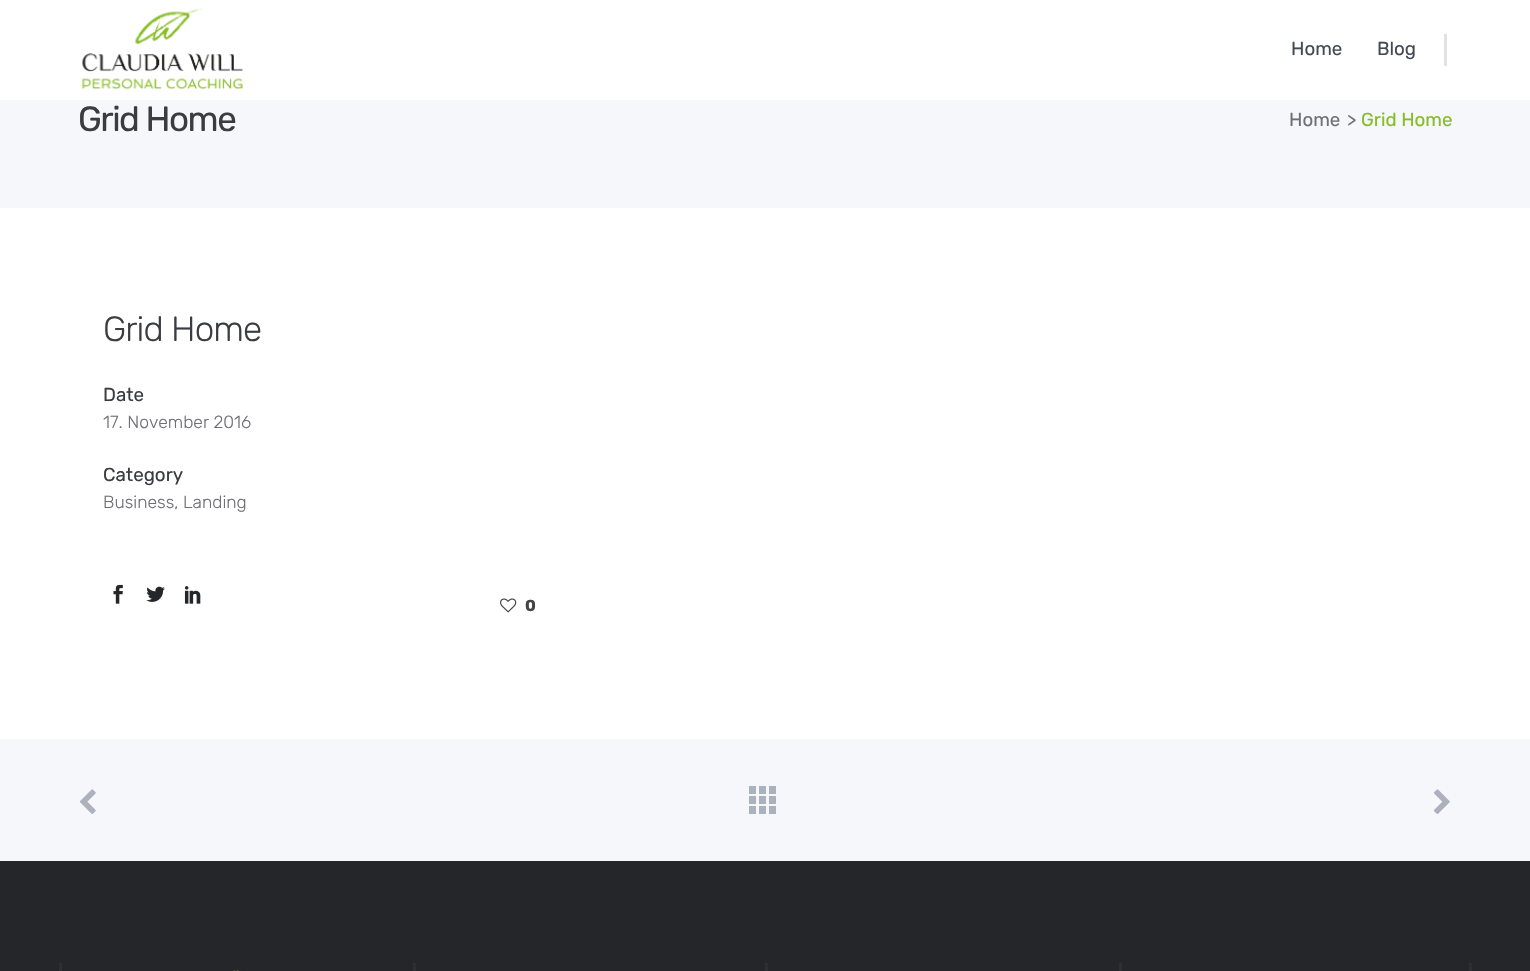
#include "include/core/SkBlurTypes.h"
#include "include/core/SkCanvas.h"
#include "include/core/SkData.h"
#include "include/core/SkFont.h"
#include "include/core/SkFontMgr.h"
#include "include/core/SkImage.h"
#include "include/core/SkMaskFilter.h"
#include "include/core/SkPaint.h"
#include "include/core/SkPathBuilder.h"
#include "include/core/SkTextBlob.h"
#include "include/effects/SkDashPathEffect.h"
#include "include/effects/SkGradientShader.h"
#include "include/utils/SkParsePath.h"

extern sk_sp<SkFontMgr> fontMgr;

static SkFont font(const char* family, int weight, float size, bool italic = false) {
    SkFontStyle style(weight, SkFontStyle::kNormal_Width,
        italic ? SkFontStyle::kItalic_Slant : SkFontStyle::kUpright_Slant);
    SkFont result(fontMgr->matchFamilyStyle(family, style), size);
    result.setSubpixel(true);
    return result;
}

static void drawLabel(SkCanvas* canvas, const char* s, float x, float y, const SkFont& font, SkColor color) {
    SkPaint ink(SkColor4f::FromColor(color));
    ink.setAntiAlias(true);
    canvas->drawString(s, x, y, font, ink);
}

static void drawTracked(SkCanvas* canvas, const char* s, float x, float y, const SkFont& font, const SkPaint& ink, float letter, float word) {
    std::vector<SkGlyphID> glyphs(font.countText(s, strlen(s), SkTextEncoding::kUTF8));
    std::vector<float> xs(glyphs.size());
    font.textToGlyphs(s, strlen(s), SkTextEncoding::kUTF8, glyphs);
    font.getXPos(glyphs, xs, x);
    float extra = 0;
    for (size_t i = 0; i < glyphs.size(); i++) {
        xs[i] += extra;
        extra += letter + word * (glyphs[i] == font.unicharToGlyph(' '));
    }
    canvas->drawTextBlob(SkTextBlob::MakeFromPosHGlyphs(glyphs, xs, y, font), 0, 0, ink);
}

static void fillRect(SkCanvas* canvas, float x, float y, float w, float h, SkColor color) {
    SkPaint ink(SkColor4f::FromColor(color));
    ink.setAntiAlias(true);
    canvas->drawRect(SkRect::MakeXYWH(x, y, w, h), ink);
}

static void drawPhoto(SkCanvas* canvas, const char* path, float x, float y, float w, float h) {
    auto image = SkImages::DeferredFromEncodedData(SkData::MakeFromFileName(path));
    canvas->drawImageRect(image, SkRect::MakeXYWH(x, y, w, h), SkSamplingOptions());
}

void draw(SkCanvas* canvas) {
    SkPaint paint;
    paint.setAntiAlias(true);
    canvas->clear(0xFFFFFFFF);
    drawPhoto(canvas, "assets/img1.png", 82, 8, 161, 82);
    SkFont font1 = font("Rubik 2", 300, 18.75f);
    drawLabel(canvas, "Home", 1291, 55, font1, 0xFF434A54);
    drawLabel(canvas, "Blog", 1377, 55, font1, 0xFF434A54);
    fillRect(canvas, 1444, 34, 3, 32, 0xFFE2E2E2);
    fillRect(canvas, 0, 100, 1530, 108, 0xFFF6F7FB);
    SkFont font2 = font("Rubik 2", 300, 35);
    paint.setColor(0xFF3A3C41);
    drawTracked(canvas, "Grid Home", 78, 131, font2, paint, -1.5f, 0);
    drawLabel(canvas, "Home", 1289, 126, font1, 0xFF6F6F77);
    drawLabel(canvas, ">", 1347, 126, font1, 0xFF6F6F77);
    drawLabel(canvas, "Grid Home", 1361, 126, font1, 0xFF86BC25);
    SkFont font3 = font("Rubik", 300, 35);
    drawTracked(canvas, "Grid Home", 103, 341, font3, paint, -0.9f, 0);
    drawLabel(canvas, "Date", 103, 401, font1, 0xFF3A3C41);
    SkFont font4 = font("Rubik", 300, 17.5f);
    drawLabel(canvas, "17. November 2016", 103, 428, font4, 0xFF6F6F77);
    drawLabel(canvas, "Category", 103, 481, font1, 0xFF3A3C41);
    drawLabel(canvas, "Business, Landing", 103, 508, font4, 0xFF6F6F77);
    drawPhoto(canvas, "assets/img2.png", 113, 584, 10, 20);
    drawPhoto(canvas, "assets/img3.png", 146, 586, 19, 16);
    drawPhoto(canvas, "assets/img4.png", 184, 586, 17, 18);
    drawPhoto(canvas, "assets/img5.png", 500, 598, 17, 15);
    SkFont font5 = font("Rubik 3", 300, 16);
    drawLabel(canvas, "0", 525, 611, font5, 0xFF444444);
    fillRect(canvas, 0, 739, 1530, 122, 0xFFF6F7FB);
    drawPhoto(canvas, "assets/img6.png", 79, 789, 17, 25);
    fillRect(canvas, 749, 786, 7, 8, 0xFFAAB2BD);
    fillRect(canvas, 759, 786, 7, 8, 0xFFAAB2BD);
    fillRect(canvas, 769, 786, 7, 8, 0xFFAAB2BD);
    fillRect(canvas, 749, 796, 7, 8, 0xFFAAB2BD);
    fillRect(canvas, 759, 796, 7, 8, 0xFFAAB2BD);
    fillRect(canvas, 769, 796, 7, 8, 0xFFAAB2BD);
    fillRect(canvas, 749, 806, 7, 8, 0xFFAAB2BD);
    fillRect(canvas, 759, 806, 7, 8, 0xFFAAB2BD);
    fillRect(canvas, 769, 806, 7, 8, 0xFFAAB2BD);
    drawPhoto(canvas, "assets/img7.png", 1433, 789, 17, 25);
    fillRect(canvas, 0, 861, 1530, 110, 0xFF24262A);
    fillRect(canvas, 59, 963, 3, 8, 0xFF2C2F33);
    drawPhoto(canvas, "assets/img8.png", 233, 970, 9, 1);
    fillRect(canvas, 413, 963, 3, 8, 0xFF2C2F33);
    fillRect(canvas, 765, 963, 3, 8, 0xFF2C2F33);
    fillRect(canvas, 1469, 963, 3, 8, 0xFF2C2F33);
    fillRect(canvas, 1119, 963, 3, 8, 0xFF2C2F33);
}
